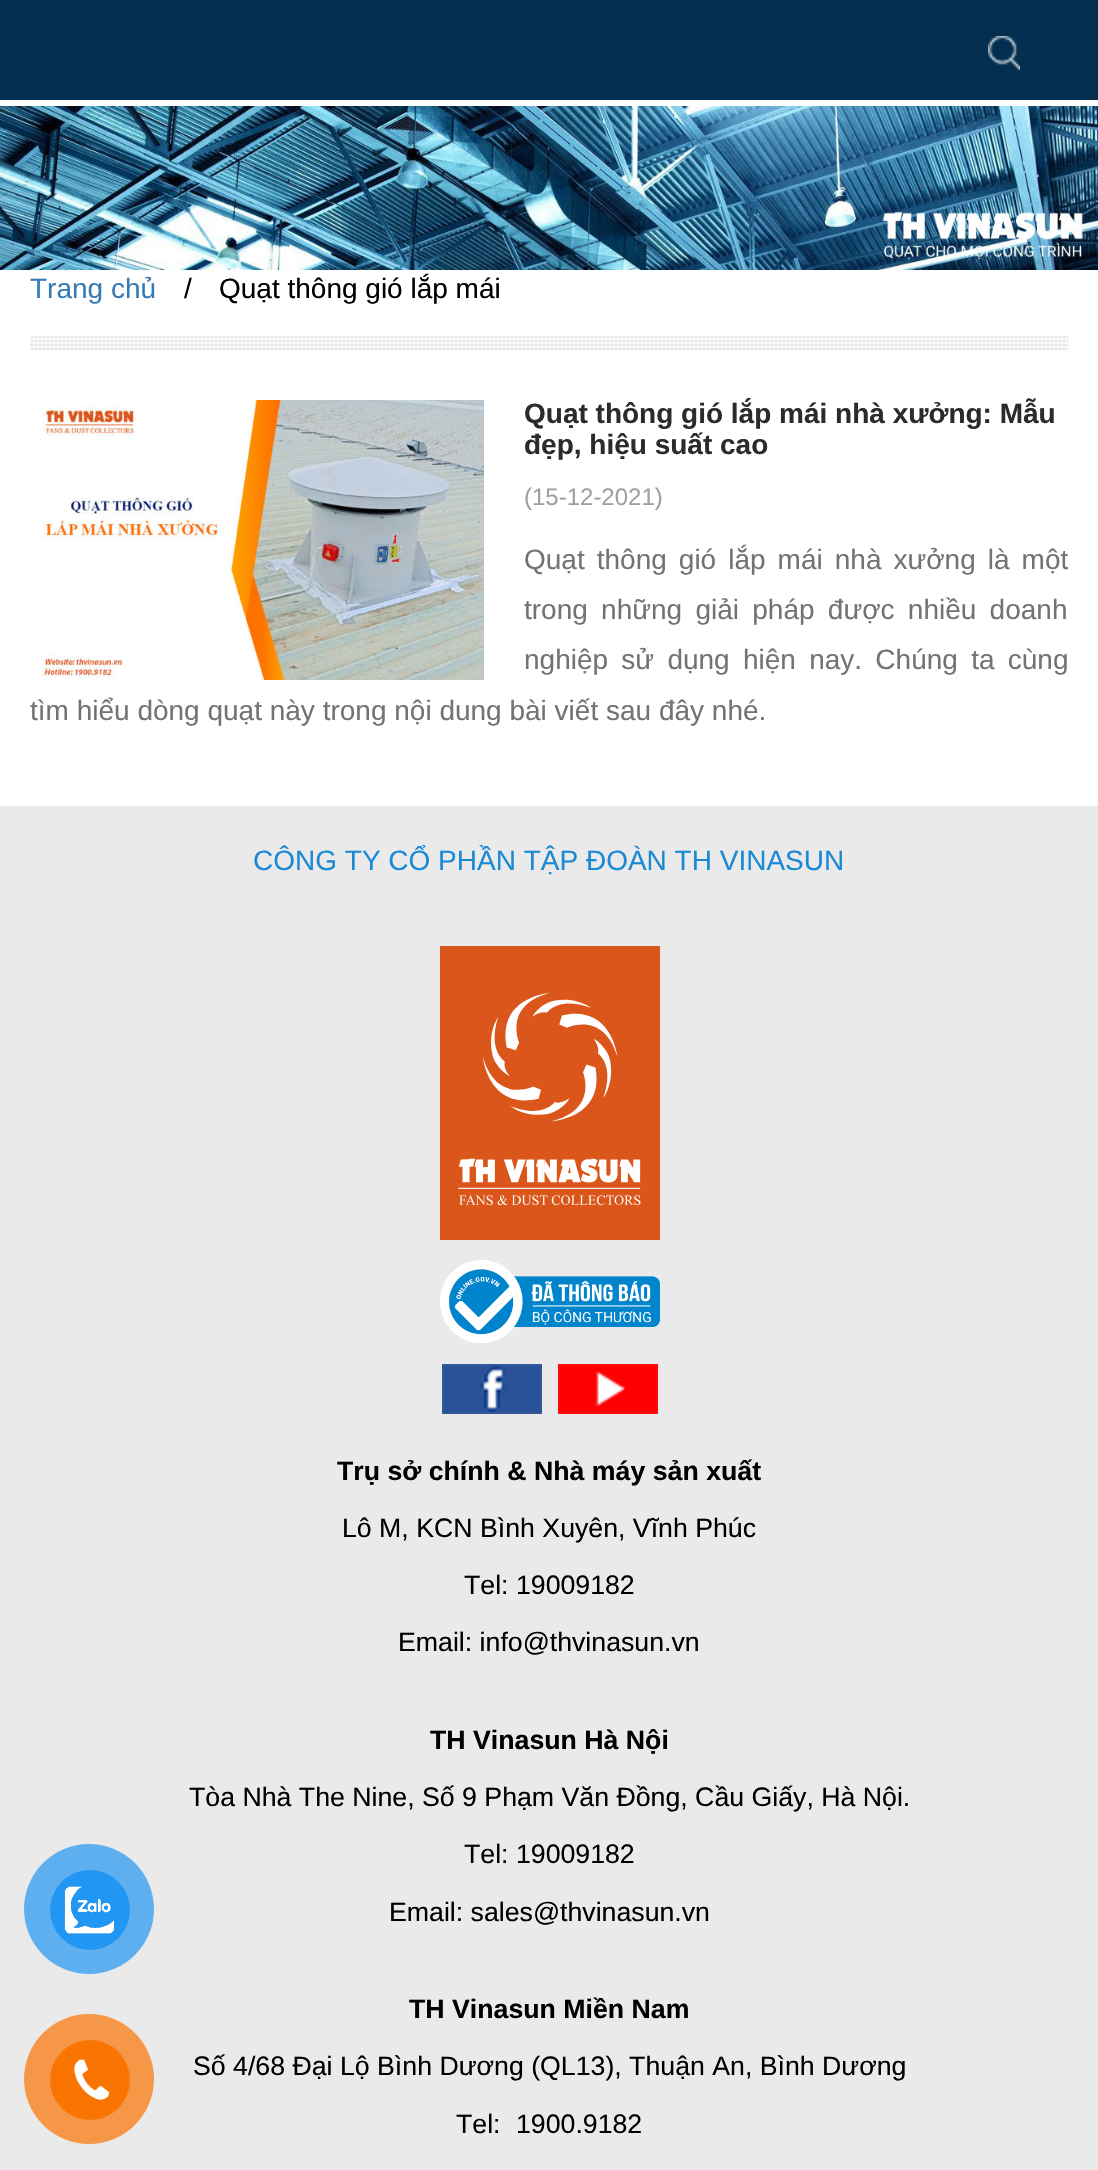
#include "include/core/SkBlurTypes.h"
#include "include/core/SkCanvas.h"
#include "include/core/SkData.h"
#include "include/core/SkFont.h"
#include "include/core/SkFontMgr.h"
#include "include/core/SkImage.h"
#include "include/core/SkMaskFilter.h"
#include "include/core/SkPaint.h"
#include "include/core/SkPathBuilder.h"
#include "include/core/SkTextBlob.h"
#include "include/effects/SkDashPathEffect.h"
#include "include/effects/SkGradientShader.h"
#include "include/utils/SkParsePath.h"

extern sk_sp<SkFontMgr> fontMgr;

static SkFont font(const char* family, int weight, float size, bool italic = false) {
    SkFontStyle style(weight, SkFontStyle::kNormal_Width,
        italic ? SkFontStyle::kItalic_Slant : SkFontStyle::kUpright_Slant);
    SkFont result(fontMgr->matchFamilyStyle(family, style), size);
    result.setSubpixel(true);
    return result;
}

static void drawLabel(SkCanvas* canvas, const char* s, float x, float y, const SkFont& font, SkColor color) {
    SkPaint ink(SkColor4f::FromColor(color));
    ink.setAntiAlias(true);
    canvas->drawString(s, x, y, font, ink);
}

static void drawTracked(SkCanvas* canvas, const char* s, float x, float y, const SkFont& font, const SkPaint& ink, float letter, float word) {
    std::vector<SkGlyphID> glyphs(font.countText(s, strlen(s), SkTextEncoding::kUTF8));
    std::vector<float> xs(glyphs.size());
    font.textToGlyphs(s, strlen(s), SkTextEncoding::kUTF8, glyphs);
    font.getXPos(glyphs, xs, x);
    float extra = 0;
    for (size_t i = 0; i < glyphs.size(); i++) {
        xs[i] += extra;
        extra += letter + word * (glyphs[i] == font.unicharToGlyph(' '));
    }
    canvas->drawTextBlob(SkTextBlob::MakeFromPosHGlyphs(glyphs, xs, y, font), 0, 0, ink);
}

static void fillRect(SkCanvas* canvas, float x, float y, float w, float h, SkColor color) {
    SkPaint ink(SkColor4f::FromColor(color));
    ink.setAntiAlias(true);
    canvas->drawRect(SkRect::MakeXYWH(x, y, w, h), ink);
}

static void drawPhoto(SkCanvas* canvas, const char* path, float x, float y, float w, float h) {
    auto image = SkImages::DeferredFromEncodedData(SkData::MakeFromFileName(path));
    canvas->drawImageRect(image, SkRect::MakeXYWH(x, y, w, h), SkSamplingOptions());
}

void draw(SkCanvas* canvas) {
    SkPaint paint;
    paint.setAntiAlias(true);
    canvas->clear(0xFFFFFFFF);
    fillRect(canvas, 0, 0, 1098, 100, 0xFF042F50);
    drawPhoto(canvas, "assets/img1.png", 988, 36, 32, 34);
    drawPhoto(canvas, "assets/img2.png", 0, 106, 1098, 164);
    drawPhoto(canvas, "assets/img3.png", 30, 336, 1038, 14);
    SkFont font1 = font("Liberation Sans", 400, 28);
    drawLabel(canvas, "Trang chủ", 30, 298, font1, 0xFF337AB7);
    drawLabel(canvas, "/", 184, 298, font1, 0xFF000000);
    drawLabel(canvas, "Quạt thông gió lắp mái", 219, 298, font1, 0xFF000000);
    drawPhoto(canvas, "assets/img4.png", 42, 400, 442, 280);
    SkFont font2 = font("Liberation Sans", 700, 28);
    drawLabel(canvas, "Quạt thông gió lắp mái nhà xưởng: Mẫu", 524, 423, font2, 0xFF2B2B2B);
    drawLabel(canvas, "đẹp, hiệu suất cao", 524, 454, font2, 0xFF2B2B2B);
    SkFont font3 = font("Liberation Sans", 400, 24);
    drawLabel(canvas, "(15-12-2021)", 524, 505, font3, 0xFF9F9F9F);
    paint.setColor(0xFF737373);
    drawTracked(canvas, "Quạt thông gió lắp mái nhà xưởng là một", 524, 569, font1, paint, 0, 4.25f);
    drawTracked(canvas, "trong những giải pháp được nhiều doanh", 524, 619, font1, paint, 0, 5.5f);
    drawTracked(canvas, "nghiệp sử dụng hiện nay. Chúng ta cùng", 524, 669, font1, paint, 0, 5.5f);
    drawLabel(canvas, "tìm hiểu dòng quạt này trong nội dung bài viết sau đây nhé.", 30, 720, font1, 0xFF737373);
    fillRect(canvas, 0, 806, 1098, 1364, 0xFFEAEAEA);
    paint.setColor(0xFF5DAFF0);
    canvas->drawCircle(89, 1909, 65, paint);
    paint.setColor(0xFF2196F3);
    canvas->drawCircle(90, 1910, 40, paint);
    drawPhoto(canvas, "assets/img5.png", 64, 1886, 50, 48);
    paint.setColor(0xFFF59746);
    canvas->drawCircle(89, 2079, 65, paint);
    paint.setColor(0xFFF97400);
    canvas->drawCircle(90, 2080, 40, paint);
    drawPhoto(canvas, "assets/img6.png", 74, 2059, 35, 41);
    drawLabel(canvas, "CÔNG TY CỔ PHẦN TẬP ĐOÀN TH VINASUN", 253, 870, font1, 0xFF1A89D6);
    drawPhoto(canvas, "assets/img7.png", 440, 946, 220, 294);
    drawPhoto(canvas, "assets/img8.png", 440, 1260, 220, 83);
    drawPhoto(canvas, "assets/img9.png", 442, 1364, 100, 50);
    drawPhoto(canvas, "assets/img10.png", 558, 1364, 100, 50);
    SkFont font4 = font("Liberation Sans", 700, 26.7f);
    drawLabel(canvas, "Trụ sở chính & Nhà máy sản xuất", 337, 1480, font4, 0xFF000000);
    SkFont font5 = font("Liberation Sans", 400, 26.7f);
    drawLabel(canvas, "Lô M, KCN Bình Xuyên, Vĩnh Phúc", 342, 1537, font5, 0xFF000000);
    drawLabel(canvas, "Tel: 19009182", 464, 1594, font5, 0xFF000000);
    drawLabel(canvas, "Email: info@thvinasun.vn", 398, 1651, font5, 0xFF000000);
    drawLabel(canvas, "TH Vinasun Hà Nội", 430, 1749, font4, 0xFF000000);
    drawLabel(canvas, "Tòa Nhà The Nine, Số 9 Phạm Văn Đồng, Cầu Giấy, Hà Nội.", 189, 1806, font5, 0xFF000000);
    drawLabel(canvas, "Tel: 19009182", 464, 1863, font5, 0xFF000000);
    drawLabel(canvas, "Email: sales@thvinasun.vn", 389, 1921, font5, 0xFF000000);
    drawLabel(canvas, "TH Vinasun Miền Nam", 409, 2018, font4, 0xFF000000);
    drawLabel(canvas, "Số 4/68 Đại Lộ Bình Dương (QL13), Thuận An, Bình Dương", 193, 2075, font5, 0xFF000000);
    drawLabel(canvas, "Tel:", 456, 2133, font5, 0xFF000000);
    drawLabel(canvas, "1900.9182", 516, 2133, font5, 0xFF000000);
}
